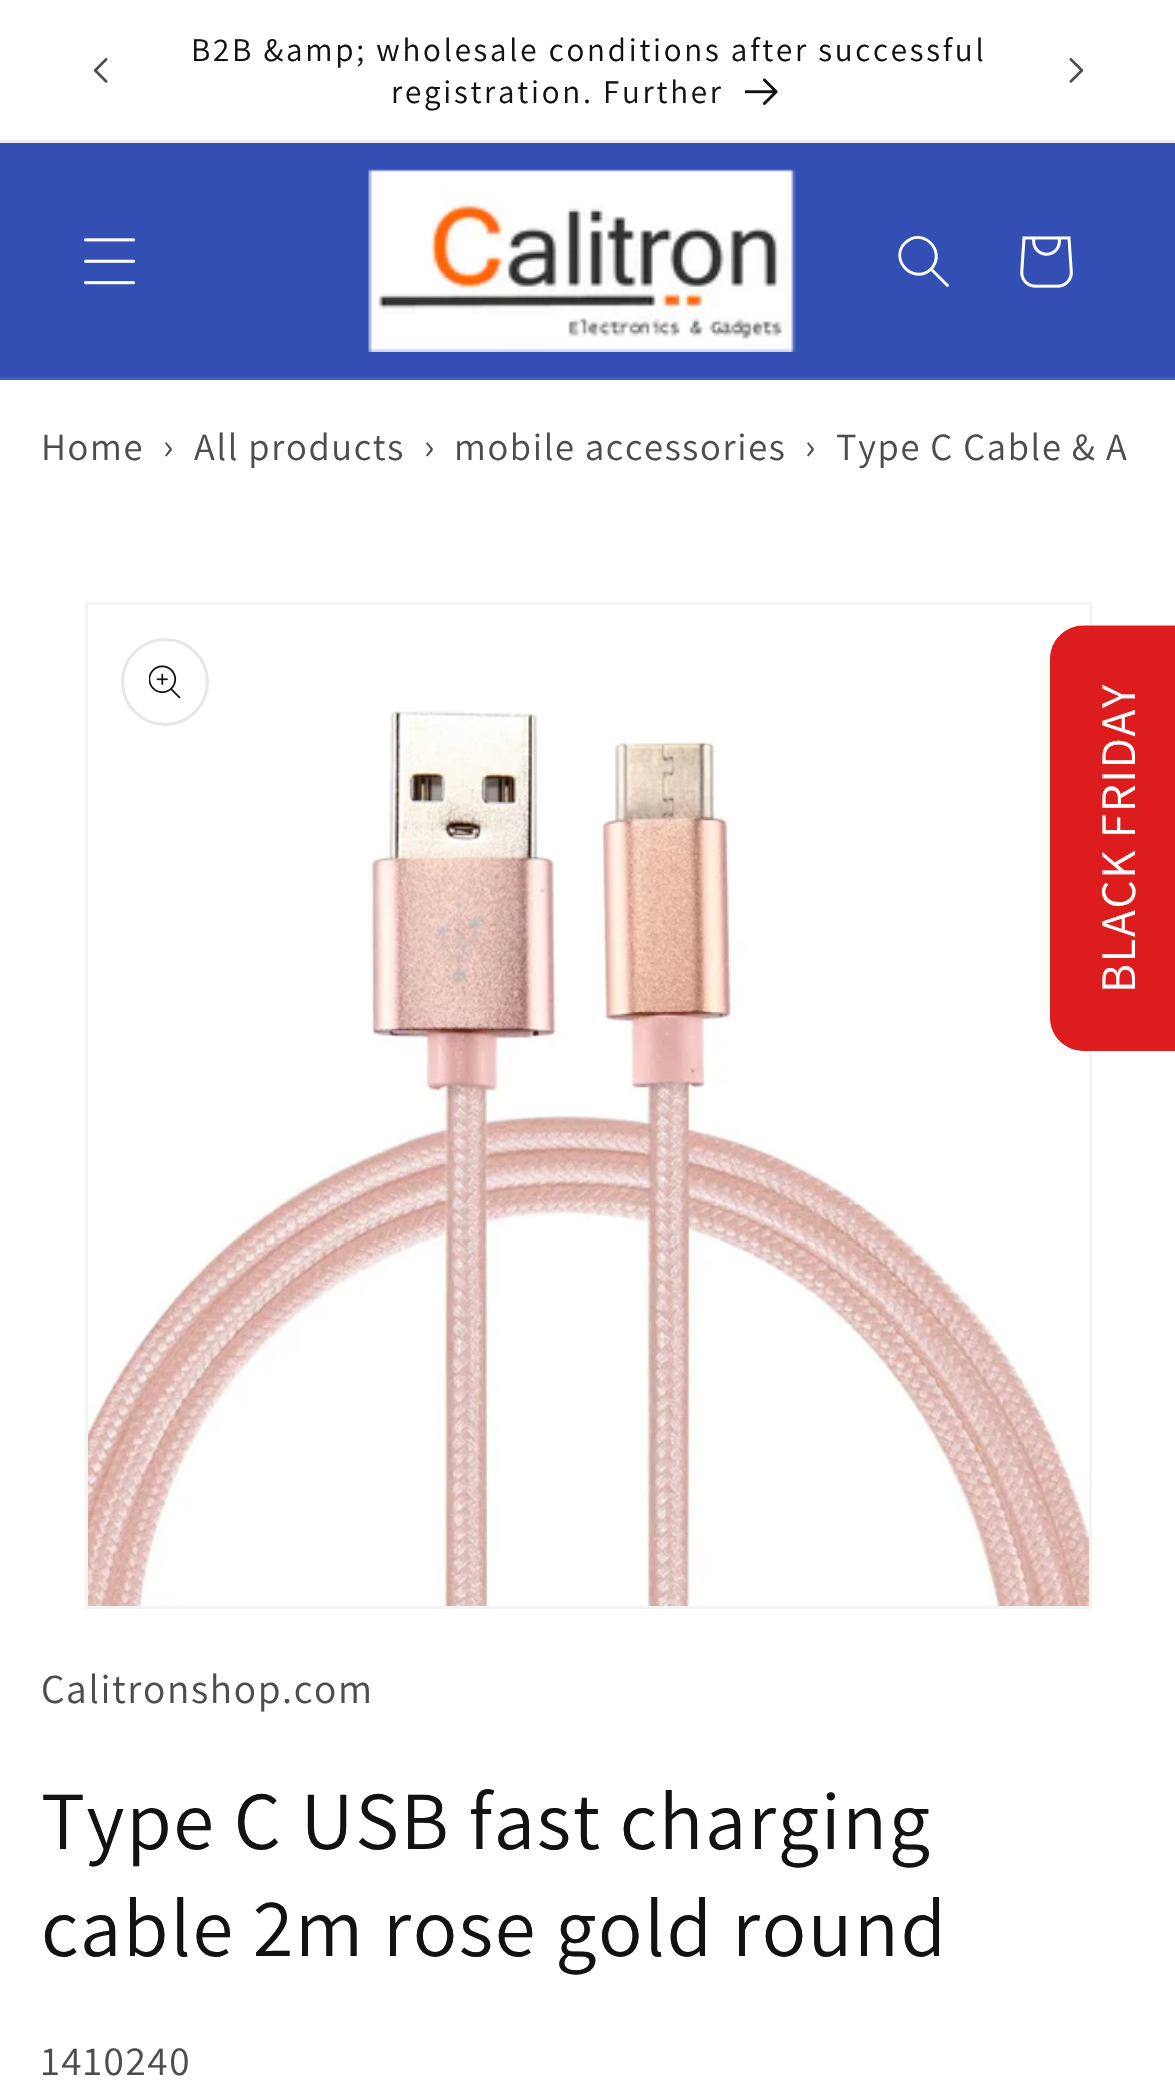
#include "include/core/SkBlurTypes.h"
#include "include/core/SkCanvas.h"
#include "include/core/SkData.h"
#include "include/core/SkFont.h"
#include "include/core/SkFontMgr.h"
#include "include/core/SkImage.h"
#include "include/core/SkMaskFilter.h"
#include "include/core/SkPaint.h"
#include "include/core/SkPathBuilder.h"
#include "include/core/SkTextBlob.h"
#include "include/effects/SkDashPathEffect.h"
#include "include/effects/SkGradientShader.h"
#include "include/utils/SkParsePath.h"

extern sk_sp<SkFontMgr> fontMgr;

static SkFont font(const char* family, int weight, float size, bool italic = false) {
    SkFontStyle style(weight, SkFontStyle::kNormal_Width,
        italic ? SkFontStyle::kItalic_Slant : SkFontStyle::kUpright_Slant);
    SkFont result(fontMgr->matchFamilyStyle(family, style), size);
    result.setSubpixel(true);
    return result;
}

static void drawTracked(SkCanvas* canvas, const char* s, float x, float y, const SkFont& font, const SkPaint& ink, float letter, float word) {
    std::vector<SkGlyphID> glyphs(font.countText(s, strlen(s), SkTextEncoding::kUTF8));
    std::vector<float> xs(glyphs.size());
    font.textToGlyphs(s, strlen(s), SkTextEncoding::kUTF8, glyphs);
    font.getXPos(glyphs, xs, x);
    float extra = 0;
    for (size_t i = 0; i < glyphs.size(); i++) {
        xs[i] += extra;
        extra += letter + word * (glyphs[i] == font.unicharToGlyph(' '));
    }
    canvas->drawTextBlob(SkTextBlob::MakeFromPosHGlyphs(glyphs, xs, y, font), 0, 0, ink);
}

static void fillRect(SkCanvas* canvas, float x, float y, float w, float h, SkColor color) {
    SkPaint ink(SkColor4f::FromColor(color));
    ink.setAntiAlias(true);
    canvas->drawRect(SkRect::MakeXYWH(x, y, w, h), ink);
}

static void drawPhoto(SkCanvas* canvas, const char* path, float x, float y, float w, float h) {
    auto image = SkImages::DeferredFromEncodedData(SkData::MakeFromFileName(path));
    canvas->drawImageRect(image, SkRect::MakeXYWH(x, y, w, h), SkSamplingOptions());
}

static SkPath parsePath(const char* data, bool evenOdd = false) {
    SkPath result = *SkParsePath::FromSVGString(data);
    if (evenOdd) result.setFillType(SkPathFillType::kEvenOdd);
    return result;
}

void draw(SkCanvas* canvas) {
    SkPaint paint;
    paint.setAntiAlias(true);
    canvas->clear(0xFFFFFFFF);
    fillRect(canvas, 0, 140, 1175, 3, 0xFFECECEC);
    drawPhoto(canvas, "assets/img1.png", 93, 58, 15, 25);
    SkFont font1 = font("Assistant", 400, 33);
    paint.setColor(0xFF121212);
    drawTracked(canvas, "B2B &amp; wholesale conditions after successful", 191, 61, font1, paint, 2.75f, 0);
    drawTracked(canvas, "registration. Further", 391, 103, font1, paint, 2.75f, 0);
    drawPhoto(canvas, "assets/img2.png", 745, 78, 33, 27);
    drawPhoto(canvas, "assets/img3.png", 1069, 58, 15, 25);
    fillRect(canvas, 0, 143, 1175, 234, 0xFF334FB4);
    fillRect(canvas, 0, 377, 1175, 3, 0xFF435DBA);
    drawPhoto(canvas, "assets/img4.png", 84, 238, 52, 47);
    drawPhoto(canvas, "assets/img5.png", 368, 169, 428, 183);
    paint.setColor(0xFFFFFFFF);
    canvas->drawPath(parsePath("M930 268C914 283 891 259 906 244C922 228 945 252 930 268M931 271C912 287 887 259 904 242C922 224 949 250 933 269L949 285C949 287 947 288 946 286Z", true), paint);
    drawPhoto(canvas, "assets/img6.png", 1020, 236, 53, 52);
    SkFont font2 = font("Assistant", 400, 38.5f);
    paint.setColor(0xFF4D4D4D);
    drawTracked(canvas, "Home", 41, 460, font2, paint, 1.65f, 0);
    drawTracked(canvas, "›", 163, 459, font2, paint, 1.65f, 0);
    drawTracked(canvas, "All products", 194, 460, font2, paint, 1.65f, 0);
    drawTracked(canvas, "›", 424, 459, font2, paint, 1.65f, 0);
    drawTracked(canvas, "mobile accessories", 454, 460, font2, paint, 1.65f, 0);
    drawTracked(canvas, "›", 805, 459, font2, paint, 1.65f, 0);
    drawTracked(canvas, "Type C Cable & A", 836, 460, font2, paint, 1.65f, 0);
    paint.setStroke(true);
    paint.setStrokeWidth(3);
    paint.setColor(0xFFF3F3F3);
    canvas->drawRect(SkRect::MakeXYWH(86.5f, 603.5f, 1004, 1004), paint);
    drawPhoto(canvas, "assets/img8.png", 88, 711, 1001, 895);
    paint.setColor(0xFFE7E7E7);
    canvas->drawCircle(165, 682, 42.5f, paint);
    drawPhoto(canvas, "assets/img7.png", 149, 665, 32, 34);
    SkFont font3 = font("Assistant", 400, 41.25f);
    paint.setStroke(false);
    paint.setColor(0xFF4D4D4D);
    drawTracked(canvas, "Calitronshop.com", 41, 1703, font3, paint, 1.65f, 0);
    SkFont font4 = font("Assistant", 400, 82.5f);
    paint.setColor(0xFF121212);
    drawTracked(canvas, "Type C USB fast charging", 41, 1849, font4, paint, 1.65f, 0);
    drawTracked(canvas, "cable 2m rose gold round", 41, 1956, font4, paint, 1.65f, 0);
    paint.setColor(0xFF4D4D4D);
    drawTracked(canvas, "1410240", 41, 2075, font3, paint, 1.65f, 0);
    paint.setColor(0xFFDD1D1D);
    canvas->drawPath(parsePath("M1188 1051H1084C1065 1051 1050 1036 1050 1018V659C1050 640 1065 626 1084 626H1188Z"), paint);
    paint.setStroke(true);
    paint.setStrokeWidth(2.8f);
    canvas->drawPath(parsePath("M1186.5 1049H1083.5C1066 1049 1052 1035 1052 1017.5V658.5C1052 641 1066 627 1083.5 627H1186.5Z"), paint);
    SkFont font5 = font("Assistant", 400, 49.5f);
    paint.setStroke(false);
    paint.setColor(0xFFFFFFFF);
    canvas->save();
    canvas->rotate(-90, 1135, 993);
    drawTracked(canvas, "BLACK FRIDAY", 1135, 993, font5, paint, 1.65f, -1);
    canvas->restore();
}
